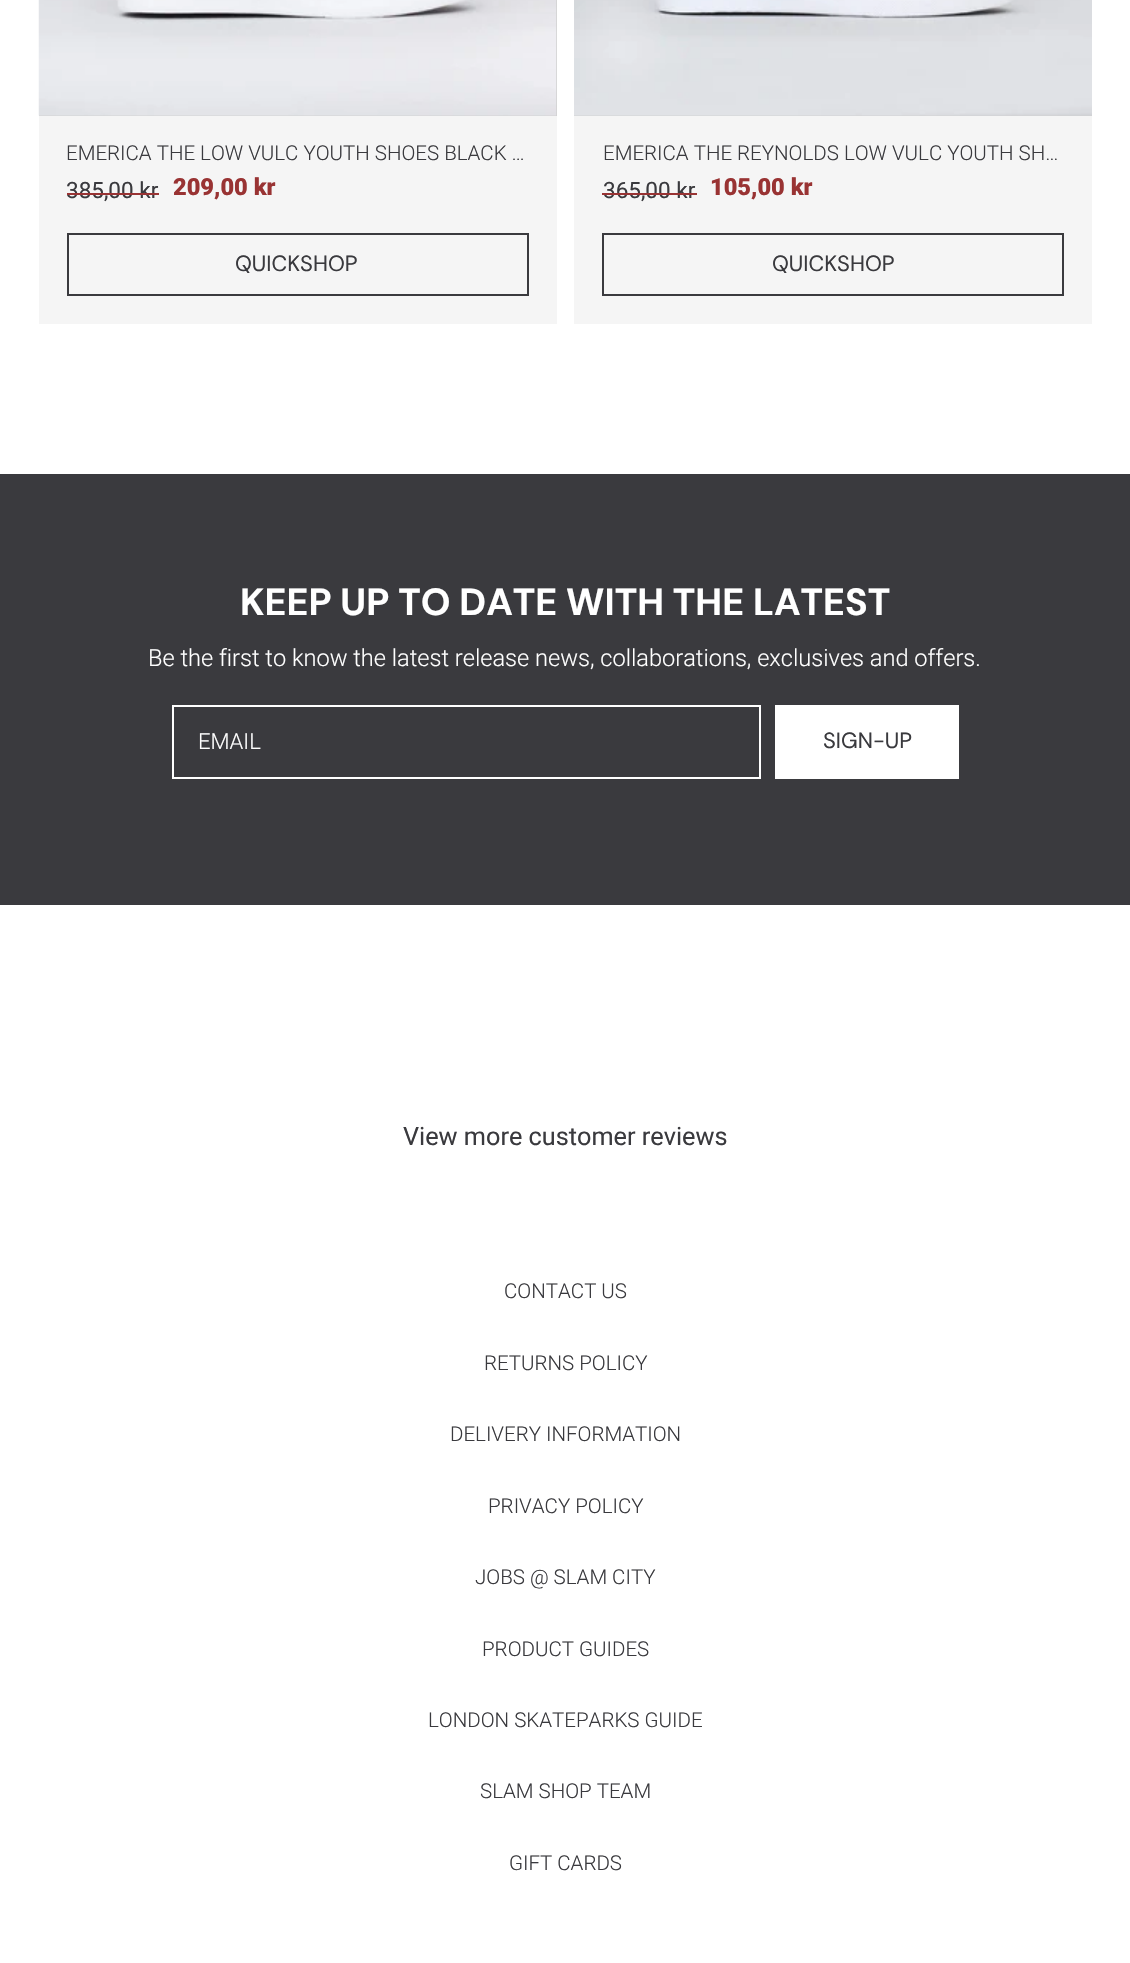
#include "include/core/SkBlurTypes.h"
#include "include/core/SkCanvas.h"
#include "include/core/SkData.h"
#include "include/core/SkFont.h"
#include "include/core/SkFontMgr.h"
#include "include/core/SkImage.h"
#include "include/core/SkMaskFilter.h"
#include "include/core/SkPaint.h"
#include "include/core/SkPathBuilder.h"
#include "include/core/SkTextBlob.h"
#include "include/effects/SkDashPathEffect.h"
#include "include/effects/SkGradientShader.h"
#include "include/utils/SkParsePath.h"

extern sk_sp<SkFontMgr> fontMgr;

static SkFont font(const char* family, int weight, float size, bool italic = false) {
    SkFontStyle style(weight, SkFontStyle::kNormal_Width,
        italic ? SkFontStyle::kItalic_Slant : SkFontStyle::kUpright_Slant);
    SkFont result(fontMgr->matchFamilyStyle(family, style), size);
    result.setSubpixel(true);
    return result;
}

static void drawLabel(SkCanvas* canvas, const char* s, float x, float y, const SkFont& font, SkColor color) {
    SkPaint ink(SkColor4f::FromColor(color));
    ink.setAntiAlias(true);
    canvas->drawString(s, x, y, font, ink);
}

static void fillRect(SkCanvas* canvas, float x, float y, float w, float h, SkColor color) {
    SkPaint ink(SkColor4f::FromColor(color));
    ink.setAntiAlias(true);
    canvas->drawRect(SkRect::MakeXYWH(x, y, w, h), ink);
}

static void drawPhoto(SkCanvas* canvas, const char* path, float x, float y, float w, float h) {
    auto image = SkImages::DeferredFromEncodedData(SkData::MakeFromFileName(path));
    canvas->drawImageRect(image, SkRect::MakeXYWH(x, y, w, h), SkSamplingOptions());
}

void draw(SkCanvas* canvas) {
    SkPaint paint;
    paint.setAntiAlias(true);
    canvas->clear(0xFFFFFFFF);
    fillRect(canvas, 39, 0, 518, 116, 0xFFD0D0D0);
    drawPhoto(canvas, "assets/img1.png", 38, 0, 519, 116);
    fillRect(canvas, 39, 116, 518, 208, 0xFFF5F5F5);
    SkFont font1 = font("Roboto", 300, 20.5f);
    drawLabel(canvas, "EMERICA THE LOW VULC YOUTH SHOES BLACK …", 66, 160, font1, 0xFF3A3A3E);
    SkFont font2 = font("Roboto", 400, 22.5f);
    drawLabel(canvas, "385,00 kr", 66, 198, font2, 0xFF3A3A3E);
    fillRect(canvas, 67, 193, 92, 2, 0xFF993333);
    SkFont font3 = font("Roboto", 900, 23.6f);
    drawLabel(canvas, "209,00 kr", 173, 195, font3, 0xFF993333);
    paint.setStroke(true);
    paint.setStrokeWidth(2);
    paint.setColor(0xFF3A3A3E);
    canvas->drawRect(SkRect::MakeXYWH(68, 234, 460, 61), paint);
    SkFont font4 = font("DM Sans", 400, 22);
    drawLabel(canvas, "QUICKSHOP", 235, 271, font4, 0xFF3A3A3E);
    fillRect(canvas, 574, 115, 518, 1, 0xFFD0D0D0);
    drawPhoto(canvas, "assets/img2.png", 574, 0, 518, 116);
    fillRect(canvas, 574, 116, 518, 208, 0xFFF5F5F5);
    drawLabel(canvas, "EMERICA THE REYNOLDS LOW VULC YOUTH SH…", 603, 160, font1, 0xFF3A3A3E);
    drawLabel(canvas, "365,00 kr", 603, 198, font2, 0xFF3A3A3E);
    fillRect(canvas, 602, 193, 95, 2, 0xFF993333);
    drawLabel(canvas, "105,00 kr", 710, 195, font3, 0xFF993333);
    canvas->drawRect(SkRect::MakeXYWH(603, 234, 460, 61), paint);
    drawLabel(canvas, "QUICKSHOP", 772, 271, font4, 0xFF3A3A3E);
    fillRect(canvas, 0, 474, 1130, 431, 0xFF3A3A3E);
    SkFont font5 = font("DM Sans", 700, 37.75f);
    drawLabel(canvas, "KEEP UP TO DATE WITH THE LATEST", 240, 615, font5, 0xFFFFFFFF);
    SkFont font6 = font("Roboto", 300, 23.6f);
    drawLabel(canvas, "Be the first to know the latest release news, collaborations, exclusives and offers.", 148, 666, font6, 0xFFFFFFFF);
    paint.setColor(0xFFFFFFFF);
    canvas->drawRect(SkRect::MakeXYWH(173, 706, 587, 72), paint);
    SkFont font7 = font("Roboto", 300, 22);
    drawLabel(canvas, "EMAIL", 198, 749, font7, 0xFFFFFFFF);
    fillRect(canvas, 775, 705, 184, 74, 0xFFFFFFFF);
    drawLabel(canvas, "SIGN-UP", 823, 748, font4, 0xFF3A3A3E);
    SkFont font8 = font("Roboto", 400, 25.25f);
    drawLabel(canvas, "View more customer reviews", 403, 1145, font8, 0xFF3A3A3E);
    drawLabel(canvas, "CONTACT US", 504, 1298, font1, 0xFF3A3A3E);
    drawLabel(canvas, "RETURNS POLICY", 484, 1370, font1, 0xFF3A3A3E);
    drawLabel(canvas, "DELIVERY INFORMATION", 450, 1441, font1, 0xFF3A3A3E);
    drawLabel(canvas, "PRIVACY POLICY", 488, 1513, font1, 0xFF3A3A3E);
    drawLabel(canvas, "JOBS @ SLAM CITY", 475, 1584, font1, 0xFF3A3A3E);
    drawLabel(canvas, "PRODUCT GUIDES", 482, 1656, font1, 0xFF3A3A3E);
    drawLabel(canvas, "LONDON SKATEPARKS GUIDE", 428, 1727, font1, 0xFF3A3A3E);
    drawLabel(canvas, "SLAM SHOP TEAM", 480, 1798, font1, 0xFF3A3A3E);
    drawLabel(canvas, "GIFT CARDS", 509, 1870, font1, 0xFF3A3A3E);
}
